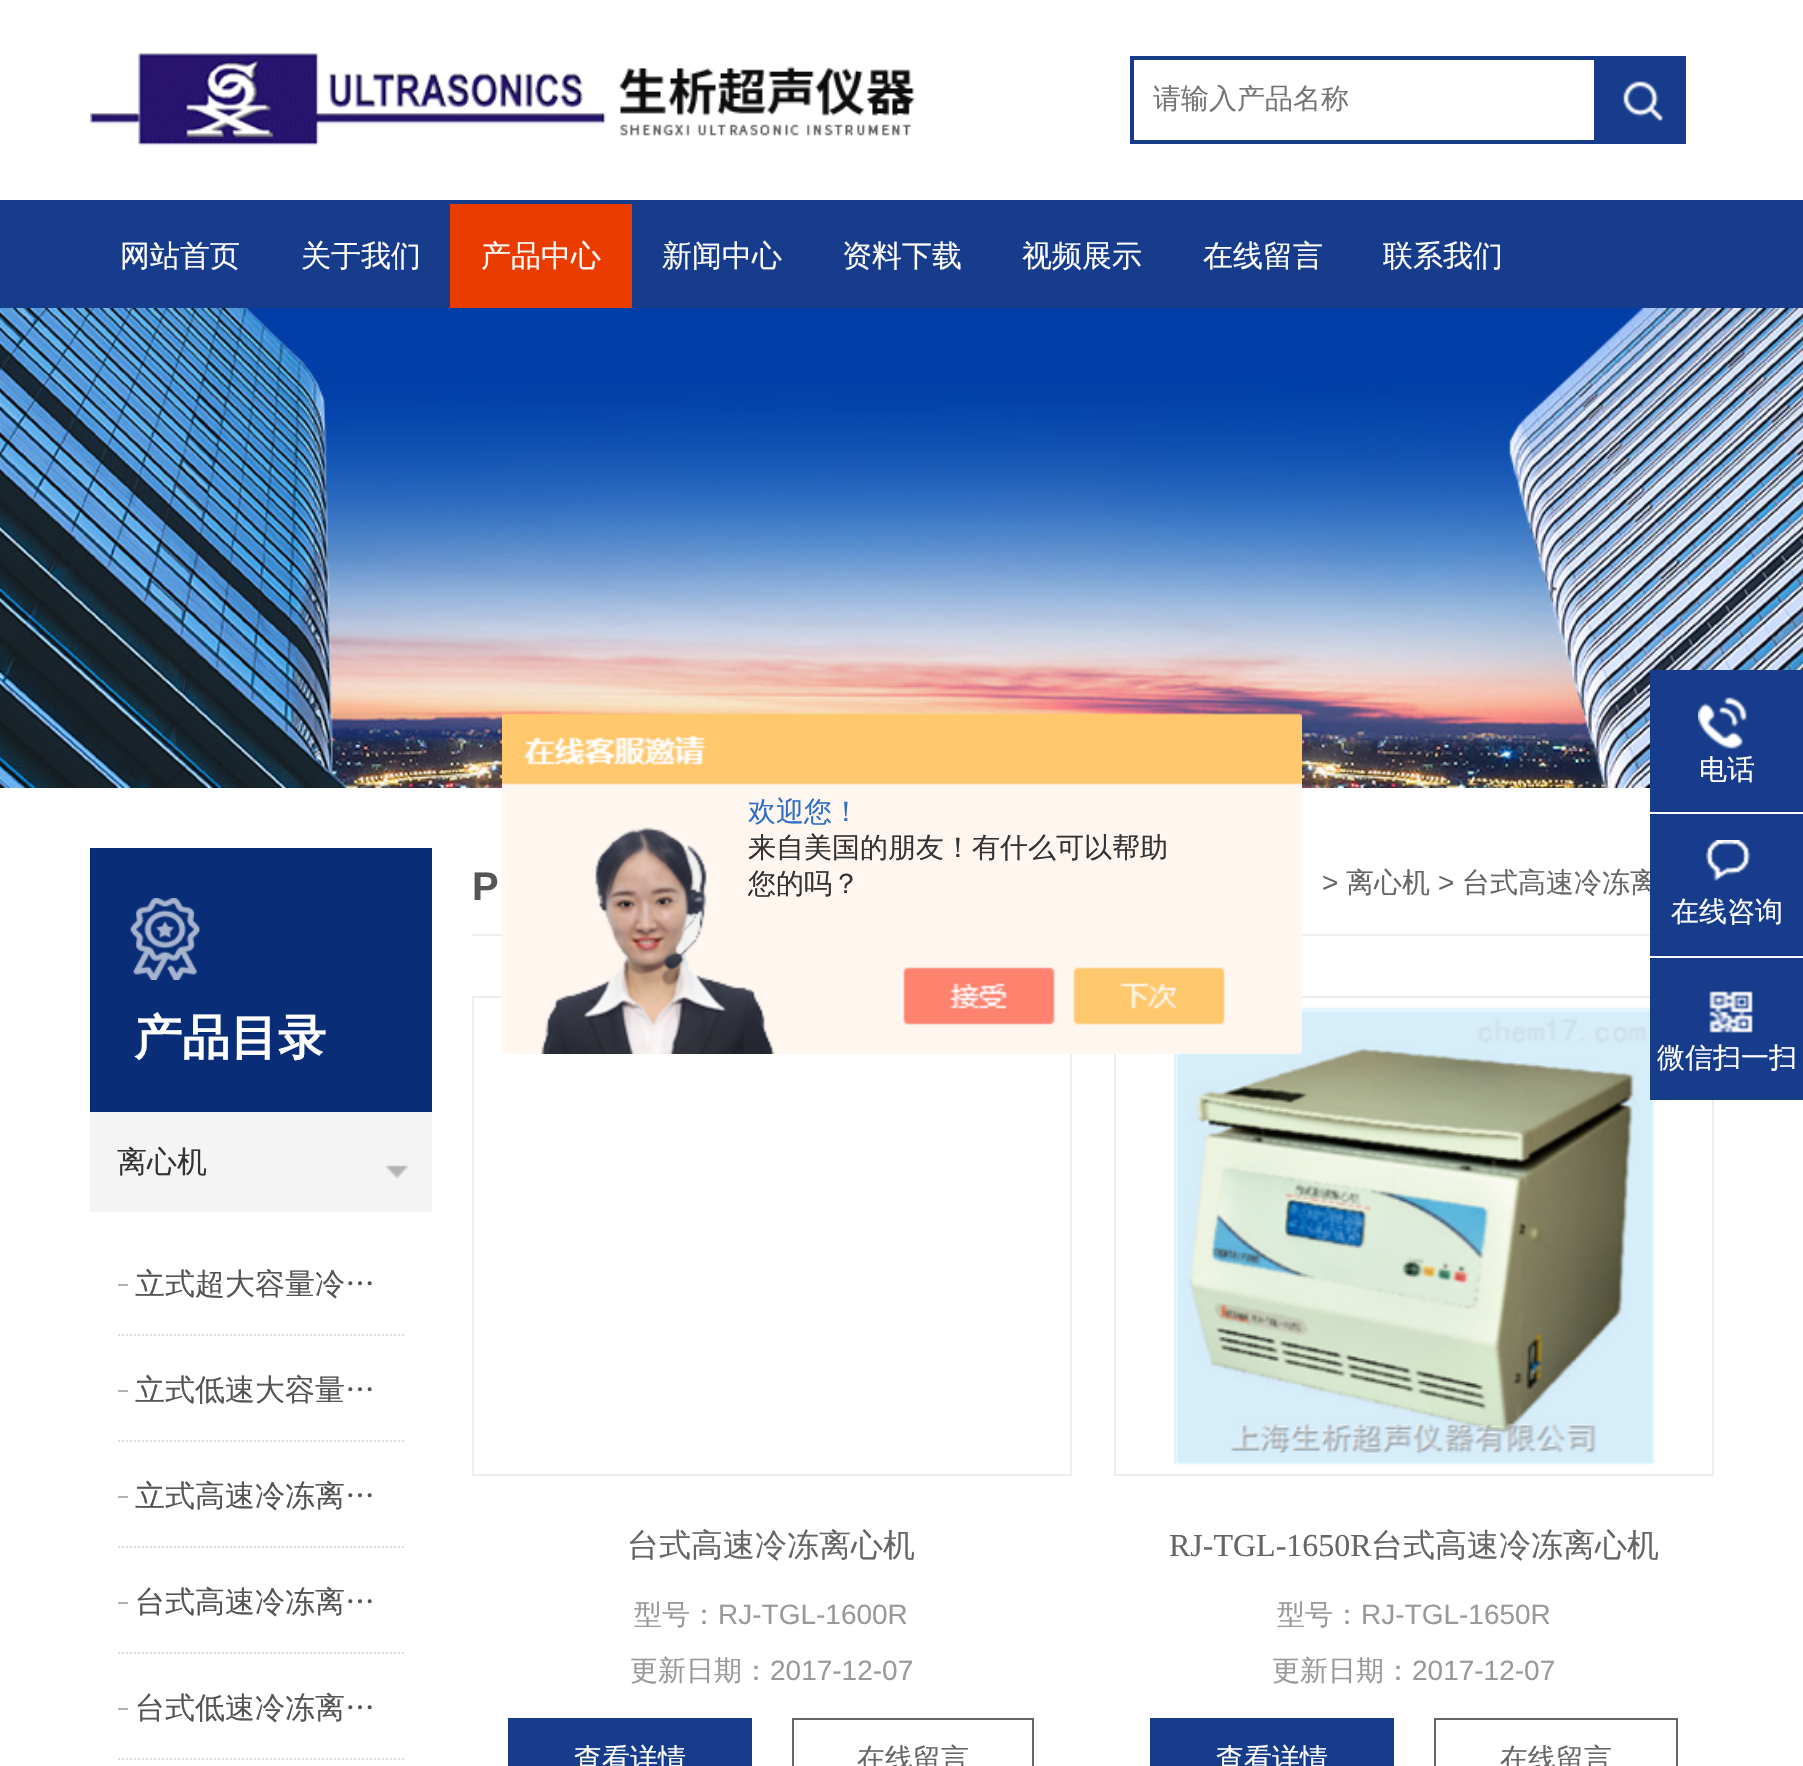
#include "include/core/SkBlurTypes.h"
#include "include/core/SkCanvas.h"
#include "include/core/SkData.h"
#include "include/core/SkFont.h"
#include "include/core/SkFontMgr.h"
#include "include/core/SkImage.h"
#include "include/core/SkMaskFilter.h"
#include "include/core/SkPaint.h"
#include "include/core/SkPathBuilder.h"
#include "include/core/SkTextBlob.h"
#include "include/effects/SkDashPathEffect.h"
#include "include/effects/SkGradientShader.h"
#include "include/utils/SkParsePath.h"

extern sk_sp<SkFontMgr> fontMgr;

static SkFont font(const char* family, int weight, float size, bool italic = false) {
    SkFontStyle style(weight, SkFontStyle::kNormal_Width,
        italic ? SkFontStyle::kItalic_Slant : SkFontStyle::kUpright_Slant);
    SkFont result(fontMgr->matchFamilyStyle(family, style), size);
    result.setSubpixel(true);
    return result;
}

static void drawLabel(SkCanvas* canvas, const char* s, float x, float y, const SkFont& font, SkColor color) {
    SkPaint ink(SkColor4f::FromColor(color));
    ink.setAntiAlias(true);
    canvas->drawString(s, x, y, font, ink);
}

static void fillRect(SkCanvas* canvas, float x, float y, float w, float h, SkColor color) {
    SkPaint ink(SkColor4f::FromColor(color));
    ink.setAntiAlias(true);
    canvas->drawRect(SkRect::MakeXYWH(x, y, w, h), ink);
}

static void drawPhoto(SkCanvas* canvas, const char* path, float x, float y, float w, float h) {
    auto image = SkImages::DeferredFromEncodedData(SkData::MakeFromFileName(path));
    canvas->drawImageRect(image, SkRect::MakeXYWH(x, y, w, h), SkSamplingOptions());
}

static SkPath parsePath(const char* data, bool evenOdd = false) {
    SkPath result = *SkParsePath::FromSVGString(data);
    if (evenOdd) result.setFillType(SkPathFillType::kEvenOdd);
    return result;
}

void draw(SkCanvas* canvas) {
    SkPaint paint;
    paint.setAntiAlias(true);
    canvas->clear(0xFFFFFFFF);
    drawPhoto(canvas, "assets/img1.png", 90, 53, 825, 93);
    paint.setStroke(true);
    paint.setStrokeWidth(4);
    paint.setColor(0xFF163C8B);
    canvas->drawRect(SkRect::MakeXYWH(1132, 58, 464, 84), paint);
    SkFont font1 = font("WenQuanYi Zen Hei", 500, 28);
    drawLabel(canvas, "请输入产品名称", 1153, 108, font1, 0xFF757575);
    fillRect(canvas, 1598, 56, 88, 88, 0xFF163C8B);
    drawPhoto(canvas, "assets/img2.png", 1623, 81, 40, 40);
    fillRect(canvas, 0, 200, 1803, 108, 0xFF163C8B);
    SkFont font2 = font("WenQuanYi Zen Hei", 500, 30);
    drawLabel(canvas, "网站首页", 120, 266, font2, 0xFFFFFFFF);
    drawLabel(canvas, "关于我们", 301, 266, font2, 0xFFFFFFFF);
    fillRect(canvas, 450, 204, 182, 104, 0xFFEB3C00);
    drawLabel(canvas, "产品中心", 481, 266, font2, 0xFFFFFFFF);
    drawLabel(canvas, "新闻中心", 662, 266, font2, 0xFFFFFFFF);
    drawLabel(canvas, "资料下载", 842, 266, font2, 0xFFFFFFFF);
    drawLabel(canvas, "视频展示", 1022, 266, font2, 0xFFFFFFFF);
    drawLabel(canvas, "在线留言", 1203, 266, font2, 0xFFFFFFFF);
    drawLabel(canvas, "联系我们", 1383, 266, font2, 0xFFFFFFFF);
    drawPhoto(canvas, "assets/img3.png", 0, 308, 1803, 480);
    fillRect(canvas, 472, 934, 1178, 2, 0xFFEFEFEF);
    paint.setStrokeWidth(2);
    paint.setColor(0xFFEEEEEE);
    canvas->drawRect(SkRect::MakeXYWH(473, 997, 598, 478), paint);
    canvas->drawRect(SkRect::MakeXYWH(1115, 997, 598, 478), paint);
    drawPhoto(canvas, "assets/img10.png", 1174, 1007, 482, 458);
    drawPhoto(canvas, "assets/img4.png", 502, 713, 800, 341);
    drawLabel(canvas, "欢迎您！", 748, 821, font1, 0xFF2E6EC6);
    drawLabel(canvas, "来自美国的朋友！有什么可以帮助", 748, 857, font1, 0xFF333333);
    drawLabel(canvas, "您的吗？", 748, 893, font1, 0xFF333333);
    fillRect(canvas, 1650, 670, 153, 142, 0xFF163C8B);
    drawPhoto(canvas, "assets/img5.png", 1698, 697, 49, 52);
    drawLabel(canvas, "电话", 1699, 779, font1, 0xFFFFFFFF);
    drawLabel(canvas, "台式高速冷冻离", 1462, 892, font1, 0xFF666666);
    fillRect(canvas, 1650, 814, 153, 142, 0xFF163C8B);
    drawPhoto(canvas, "assets/img6.png", 1706, 840, 45, 41);
    drawLabel(canvas, "在线咨询", 1671, 921, font1, 0xFFFFFFFF);
    fillRect(canvas, 1650, 958, 153, 142, 0xFF163C8B);
    drawPhoto(canvas, "assets/img7.png", 1709, 991, 44, 42);
    drawLabel(canvas, "微信扫一扫", 1657, 1067, font1, 0xFFFFFFFF);
    fillRect(canvas, 90, 848, 342, 264, 0xFF092D77);
    drawPhoto(canvas, "assets/img8.png", 130, 898, 70, 82);
    SkFont font3 = font("WenQuanYi Zen Hei", 700, 48);
    drawLabel(canvas, "产品目录", 134, 1054, font3, 0xFFFFFFFF);
    fillRect(canvas, 90, 1112, 342, 100, 0xFFF4F4F4);
    drawLabel(canvas, "离心机", 117, 1172, font2, 0xFF333333);
    drawPhoto(canvas, "assets/img9.png", 385, 1165, 24, 14);
    paint.setColor(0xFFDEDEDE);
    paint.setPathEffect(SkDashPathEffect::Make({{2, 2}}, 0));
    canvas->drawPath(parsePath("M118 1335H404"), paint);
    paint.setPathEffect(nullptr);
    fillRect(canvas, 118, 1284, 10, 2, 0xFFB3B3B3);
    drawLabel(canvas, "立式超大容量冷…", 135, 1294, font2, 0xFF555555);
    paint.setPathEffect(SkDashPathEffect::Make({{2, 2}}, 0));
    canvas->drawPath(parsePath("M118 1441H404"), paint);
    paint.setPathEffect(nullptr);
    fillRect(canvas, 118, 1390, 10, 2, 0xFFB3B3B3);
    drawLabel(canvas, "立式低速大容量…", 135, 1400, font2, 0xFF555555);
    paint.setPathEffect(SkDashPathEffect::Make({{2, 2}}, 0));
    canvas->drawPath(parsePath("M118 1547H404"), paint);
    paint.setPathEffect(nullptr);
    fillRect(canvas, 118, 1496, 10, 2, 0xFFB3B3B3);
    drawLabel(canvas, "立式高速冷冻离…", 135, 1506, font2, 0xFF555555);
    paint.setPathEffect(SkDashPathEffect::Make({{2, 2}}, 0));
    canvas->drawPath(parsePath("M118 1653H404"), paint);
    paint.setPathEffect(nullptr);
    fillRect(canvas, 118, 1602, 10, 2, 0xFFB3B3B3);
    drawLabel(canvas, "台式高速冷冻离…", 135, 1612, font2, 0xFF555555);
    paint.setPathEffect(SkDashPathEffect::Make({{2, 2}}, 0));
    canvas->drawPath(parsePath("M118 1759H404"), paint);
    paint.setPathEffect(nullptr);
    fillRect(canvas, 118, 1708, 10, 2, 0xFFB3B3B3);
    drawLabel(canvas, "台式低速冷冻离…", 135, 1718, font2, 0xFF555555);
    SkFont font4 = font("Liberation Sans", 700, 40);
    drawLabel(canvas, "P", 472, 900, font4, 0xFF555555);
    SkFont font5 = font("Liberation Sans", 400, 28);
    drawLabel(canvas, ">", 1322, 892, font5, 0xFF666666);
    drawLabel(canvas, "离心机", 1346, 892, font1, 0xFF666666);
    drawLabel(canvas, ">", 1438, 892, font5, 0xFF666666);
    SkFont font6 = font("WenQuanYi Zen Hei", 500, 32);
    drawLabel(canvas, "台式高速冷冻离心机", 627, 1556, font6, 0xFF666666);
    drawLabel(canvas, "型号：", 634, 1624, font1, 0xFF999999);
    drawLabel(canvas, "RJ-TGL-1600R", 718, 1624, font5, 0xFF999999);
    drawLabel(canvas, "更新日期：", 630, 1680, font1, 0xFF999999);
    drawLabel(canvas, "2017-12-07", 770, 1680, font5, 0xFF999999);
    fillRect(canvas, 508, 1718, 244, 48, 0xFF163C8B);
    drawLabel(canvas, "查看详情", 574, 1768, font1, 0xFFFFFFFF);
    paint.setColor(0xFF666666);
    canvas->drawRect(SkRect::MakeXYWH(793, 1719, 240, 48), paint);
    drawLabel(canvas, "在线留言", 857, 1768, font1, 0xFF666666);
    SkFont font7 = font("Liberation Serif", 400, 32);
    drawLabel(canvas, "RJ-TGL-1650R", 1169, 1556, font7, 0xFF666666);
    drawLabel(canvas, "台式高速冷冻离心机", 1371, 1556, font6, 0xFF666666);
    drawLabel(canvas, "型号：", 1277, 1624, font1, 0xFF999999);
    drawLabel(canvas, "RJ-TGL-1650R", 1361, 1624, font5, 0xFF999999);
    drawLabel(canvas, "更新日期：", 1272, 1680, font1, 0xFF999999);
    drawLabel(canvas, "2017-12-07", 1412, 1680, font5, 0xFF999999);
    fillRect(canvas, 1150, 1718, 244, 48, 0xFF163C8B);
    drawLabel(canvas, "查看详情", 1216, 1768, font1, 0xFFFFFFFF);
    canvas->drawRect(SkRect::MakeXYWH(1435, 1719, 242, 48), paint);
    drawLabel(canvas, "在线留言", 1500, 1768, font1, 0xFF666666);
}
